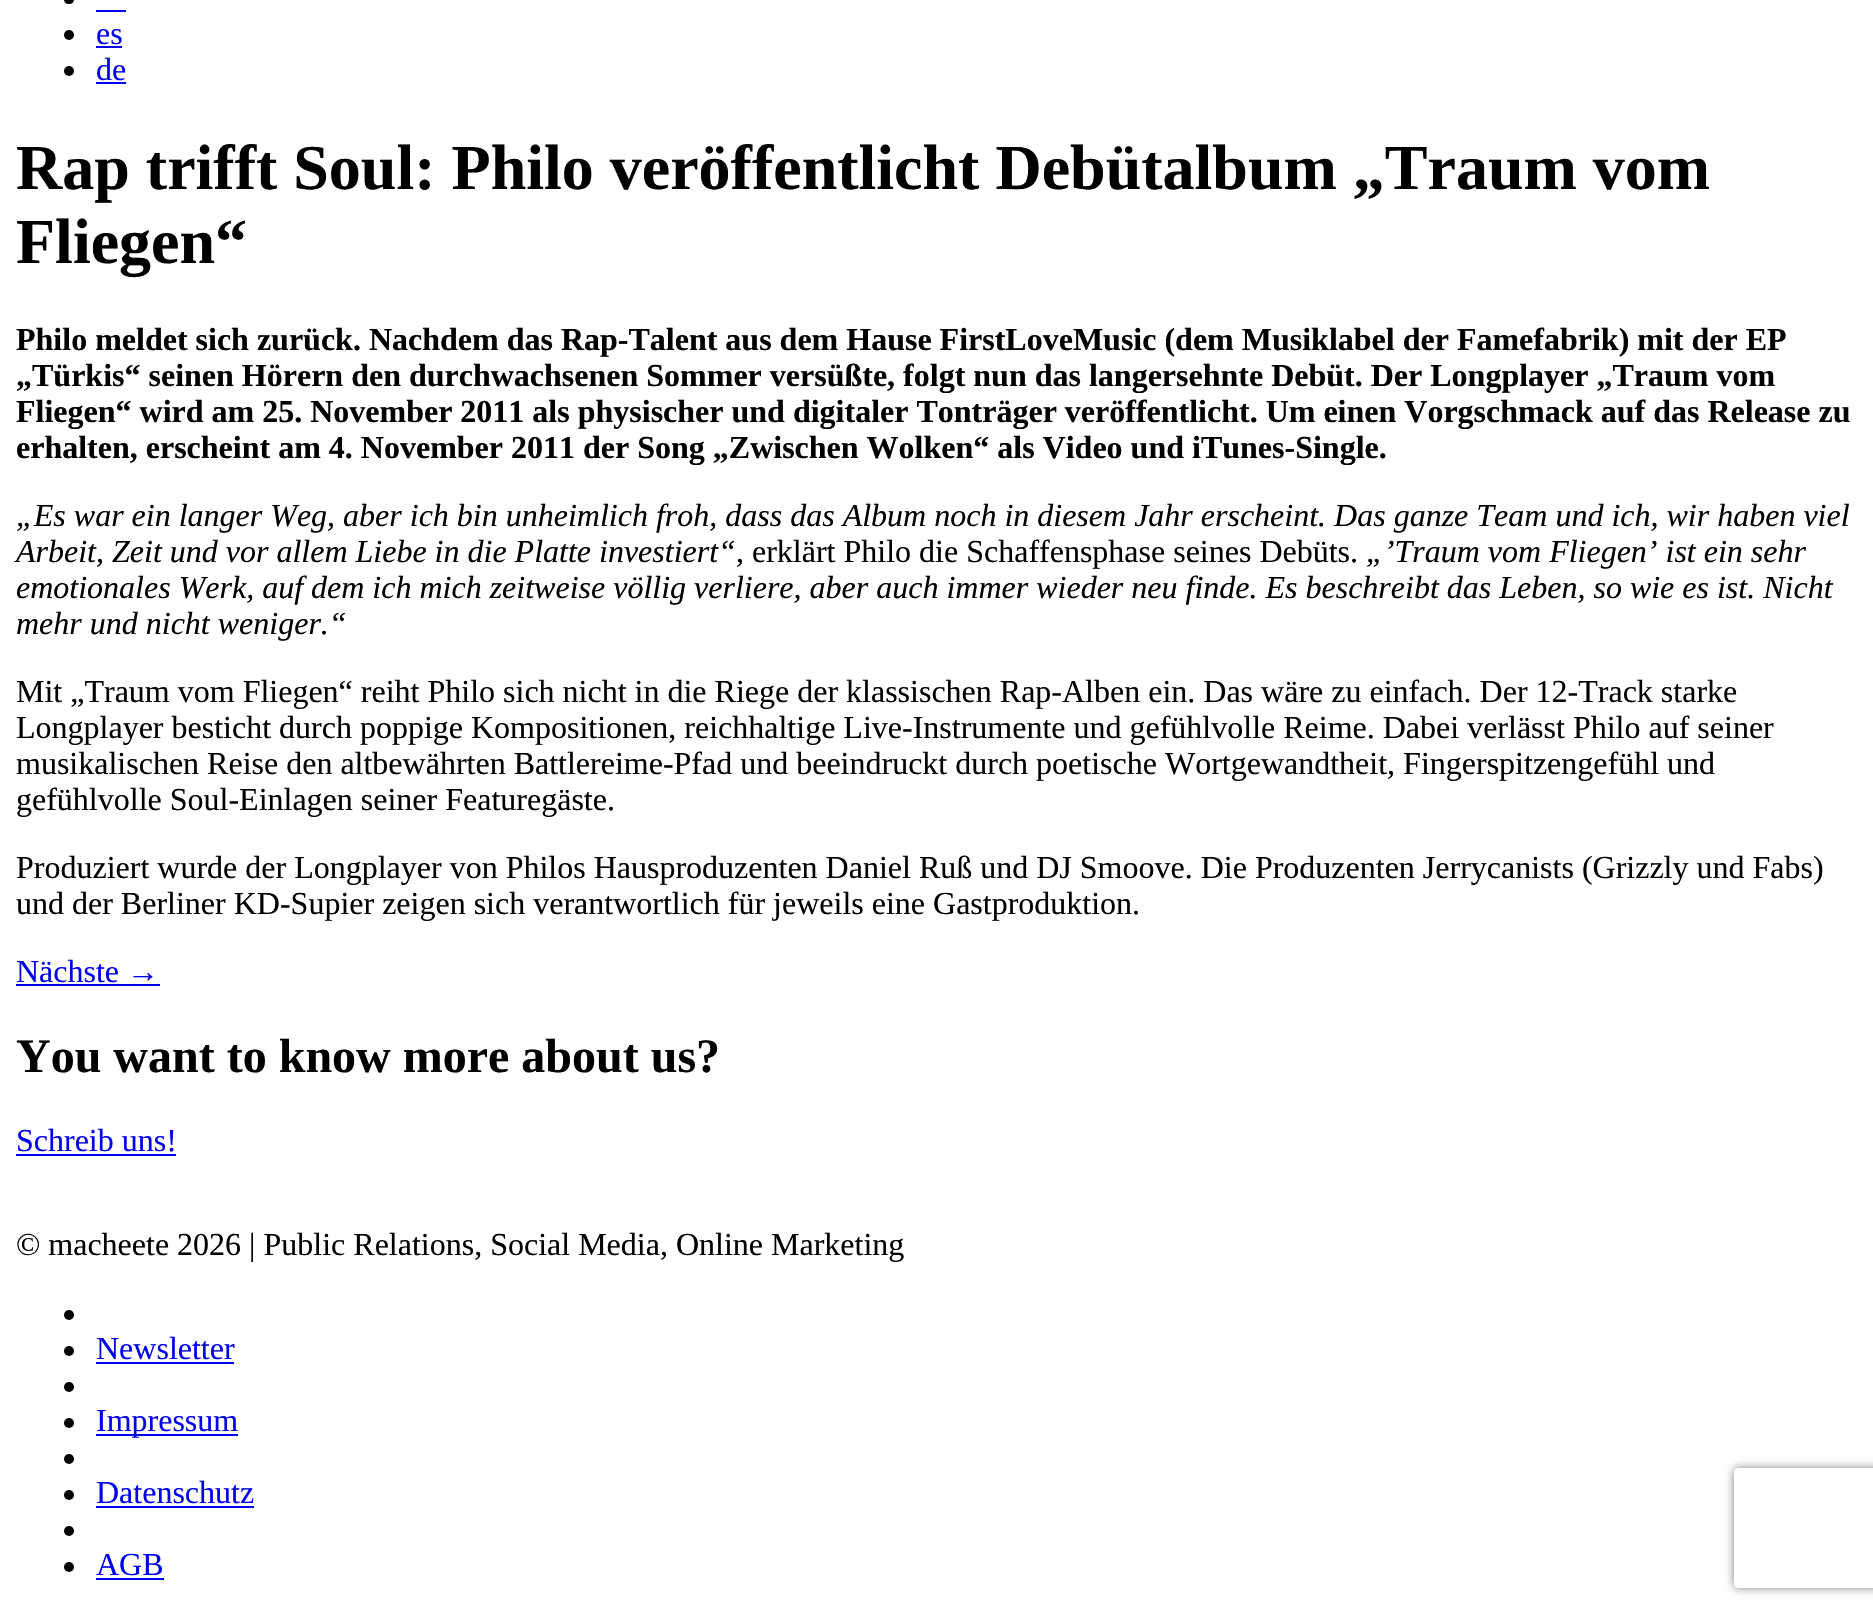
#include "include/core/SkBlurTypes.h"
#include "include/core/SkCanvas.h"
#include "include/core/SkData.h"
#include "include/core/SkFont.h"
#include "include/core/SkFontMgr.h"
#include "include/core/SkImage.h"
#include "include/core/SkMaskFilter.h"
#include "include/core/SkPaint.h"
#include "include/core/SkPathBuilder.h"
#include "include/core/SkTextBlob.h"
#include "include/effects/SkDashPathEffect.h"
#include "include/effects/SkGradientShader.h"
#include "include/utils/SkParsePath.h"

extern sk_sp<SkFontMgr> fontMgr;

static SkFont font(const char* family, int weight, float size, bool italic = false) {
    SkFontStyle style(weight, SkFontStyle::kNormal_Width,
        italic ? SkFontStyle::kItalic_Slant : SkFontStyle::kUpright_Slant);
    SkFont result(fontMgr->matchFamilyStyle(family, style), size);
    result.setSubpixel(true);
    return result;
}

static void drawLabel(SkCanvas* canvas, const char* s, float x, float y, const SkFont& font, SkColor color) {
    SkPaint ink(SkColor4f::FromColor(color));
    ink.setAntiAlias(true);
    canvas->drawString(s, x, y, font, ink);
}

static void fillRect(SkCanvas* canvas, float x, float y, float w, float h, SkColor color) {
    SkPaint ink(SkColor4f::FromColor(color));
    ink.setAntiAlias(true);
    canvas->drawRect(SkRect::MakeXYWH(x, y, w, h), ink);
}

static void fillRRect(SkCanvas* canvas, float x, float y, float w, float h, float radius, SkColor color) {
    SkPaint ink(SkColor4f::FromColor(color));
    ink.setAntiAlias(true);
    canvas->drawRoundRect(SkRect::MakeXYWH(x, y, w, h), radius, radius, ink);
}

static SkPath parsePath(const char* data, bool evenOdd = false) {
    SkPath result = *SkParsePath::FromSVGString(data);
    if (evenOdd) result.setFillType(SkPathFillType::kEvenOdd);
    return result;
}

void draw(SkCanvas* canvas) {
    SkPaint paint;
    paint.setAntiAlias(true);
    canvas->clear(0xFFFFFFFF);
    fillRRect(canvas, 64, -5, 10, 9, 5, 0xFF000000);
    fillRect(canvas, 96, 10, 30, 2, 0xFF0000EE);
    paint.setColor(0xFF000000);
    canvas->drawCircle(69, 35, 5, paint);
    SkFont font1 = font("Liberation Serif", 400, 32);
    drawLabel(canvas, "es", 96, 44, font1, 0xFF0000EE);
    fillRect(canvas, 96, 46, 26, 2, 0xFF0000EE);
    canvas->drawCircle(69, 71, 5, paint);
    drawLabel(canvas, "de", 96, 80, font1, 0xFF0000EE);
    fillRect(canvas, 96, 82, 30, 2, 0xFF0000EE);
    SkFont font2 = font("Liberation Serif", 700, 64);
    drawLabel(canvas, "Rap trifft Soul: Philo veröffentlicht Debütalbum „Traum vom", 16, 189, font2, 0xFF000000);
    drawLabel(canvas, "Fliegen“", 16, 263, font2, 0xFF000000);
    SkFont font3 = font("Liberation Serif", 700, 32);
    drawLabel(canvas, "Philo meldet sich zurück. Nachdem das Rap-Talent aus dem Hause FirstLoveMusic (dem Musiklabel der Famefabrik) mit der EP", 16, 350, font3, 0xFF000000);
    drawLabel(canvas, "„Türkis“ seinen Hörern den durchwachsenen Sommer versüßte, folgt nun das langersehnte Debüt. Der Longplayer „Traum vom", 16, 386, font3, 0xFF000000);
    drawLabel(canvas, "Fliegen“ wird am 25. November 2011 als physischer und digitaler Tonträger veröffentlicht. Um einen Vorgschmack auf das Release zu", 16, 422, font3, 0xFF000000);
    drawLabel(canvas, "erhalten, erscheint am 4. November 2011 der Song „Zwischen Wolken“ als Video und iTunes-Single.", 16, 458, font3, 0xFF000000);
    SkFont font4 = font("Liberation Serif", 400, 32, true);
    drawLabel(canvas, "„Es war ein langer Weg, aber ich bin unheimlich froh, dass das Album noch in diesem Jahr erscheint. Das ganze Team und ich, wir haben viel", 16, 526, font4, 0xFF000000);
    drawLabel(canvas, "Arbeit, Zeit und vor allem Liebe in die Platte investiert“", 16, 562, font4, 0xFF000000);
    drawLabel(canvas, ", erklärt Philo die Schaffensphase seines Debüts.", 736, 562, font1, 0xFF000000);
    drawLabel(canvas, "„’Traum vom Fliegen’ ist ein sehr", 1366, 562, font4, 0xFF000000);
    drawLabel(canvas, "emotionales Werk, auf dem ich mich zeitweise völlig verliere, aber auch immer wieder neu finde. Es beschreibt das Leben, so wie es ist. Nicht", 16, 598, font4, 0xFF000000);
    drawLabel(canvas, "mehr und nicht weniger.“", 16, 634, font4, 0xFF000000);
    drawLabel(canvas, "Mit „Traum vom Fliegen“ reiht Philo sich nicht in die Riege der klassischen Rap-Alben ein. Das wäre zu einfach. Der 12-Track starke", 16, 702, font1, 0xFF000000);
    drawLabel(canvas, "Longplayer besticht durch poppige Kompositionen, reichhaltige Live-Instrumente und gefühlvolle Reime. Dabei verlässt Philo auf seiner", 16, 738, font1, 0xFF000000);
    drawLabel(canvas, "musikalischen Reise den altbewährten Battlereime-Pfad und beeindruckt durch poetische Wortgewandtheit, Fingerspitzengefühl und", 16, 774, font1, 0xFF000000);
    drawLabel(canvas, "gefühlvolle Soul-Einlagen seiner Featuregäste.", 16, 810, font1, 0xFF000000);
    drawLabel(canvas, "Produziert wurde der Longplayer von Philos Hausproduzenten Daniel Ruß und DJ Smoove. Die Produzenten Jerrycanists (Grizzly und Fabs)", 16, 878, font1, 0xFF000000);
    drawLabel(canvas, "und der Berliner KD-Supier zeigen sich verantwortlich für jeweils eine Gastproduktion.", 16, 914, font1, 0xFF000000);
    drawLabel(canvas, "Nächste →", 16, 982, font1, 0xFF0000EE);
    fillRect(canvas, 16, 984, 144, 2, 0xFF0000EE);
    SkFont font5 = font("Liberation Serif", 700, 48);
    drawLabel(canvas, "You want to know more about us?", 16, 1072, font5, 0xFF000000);
    drawLabel(canvas, "Schreib uns!", 16, 1151, font1, 0xFF0000EE);
    fillRect(canvas, 16, 1154, 160, 2, 0xFF0000EE);
    drawLabel(canvas, "© macheete 2026 | Public Relations, Social Media, Online Marketing", 16, 1255, font1, 0xFF000000);
    canvas->drawCircle(69, 1315, 5, paint);
    canvas->drawCircle(69, 1351, 5, paint);
    drawLabel(canvas, "Newsletter", 96, 1359, font1, 0xFF0000EE);
    fillRect(canvas, 96, 1362, 138, 2, 0xFF0000EE);
    canvas->drawCircle(69, 1387, 5, paint);
    canvas->drawCircle(69, 1423, 5, paint);
    fillRect(canvas, 96, 1434, 142, 2, 0xFF0000EE);
    drawLabel(canvas, "Impressum", 96, 1431, font1, 0xFF0000EE);
    canvas->drawCircle(69, 1459, 5, paint);
    canvas->drawCircle(69, 1495, 5, paint);
    drawLabel(canvas, "Datenschutz", 96, 1503, font1, 0xFF0000EE);
    fillRect(canvas, 96, 1506, 158, 2, 0xFF0000EE);
    canvas->drawCircle(69, 1531, 5, paint);
    canvas->drawCircle(69, 1567, 5, paint);
    drawLabel(canvas, "AGB", 96, 1575, font1, 0xFF0000EE);
    fillRect(canvas, 96, 1578, 68, 2, 0xFF0000EE);
    canvas->save();
    canvas->clipPath(parsePath("M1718 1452H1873V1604H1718ZM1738 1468H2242C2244 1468 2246 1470 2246 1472V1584C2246 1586 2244 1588 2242 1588H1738C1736 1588 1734 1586 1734 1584V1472C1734 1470 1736 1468 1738 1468Z", true), true);
    paint.setColor(0xFF808080);
    paint.setMaskFilter(SkMaskFilter::MakeBlur(kNormal_SkBlurStyle, 5));
    canvas->drawRoundRect(SkRect::MakeXYWH(1734, 1468, 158, 120), 4, 4, paint);
    paint.setMaskFilter(nullptr);
    canvas->restore();
}
